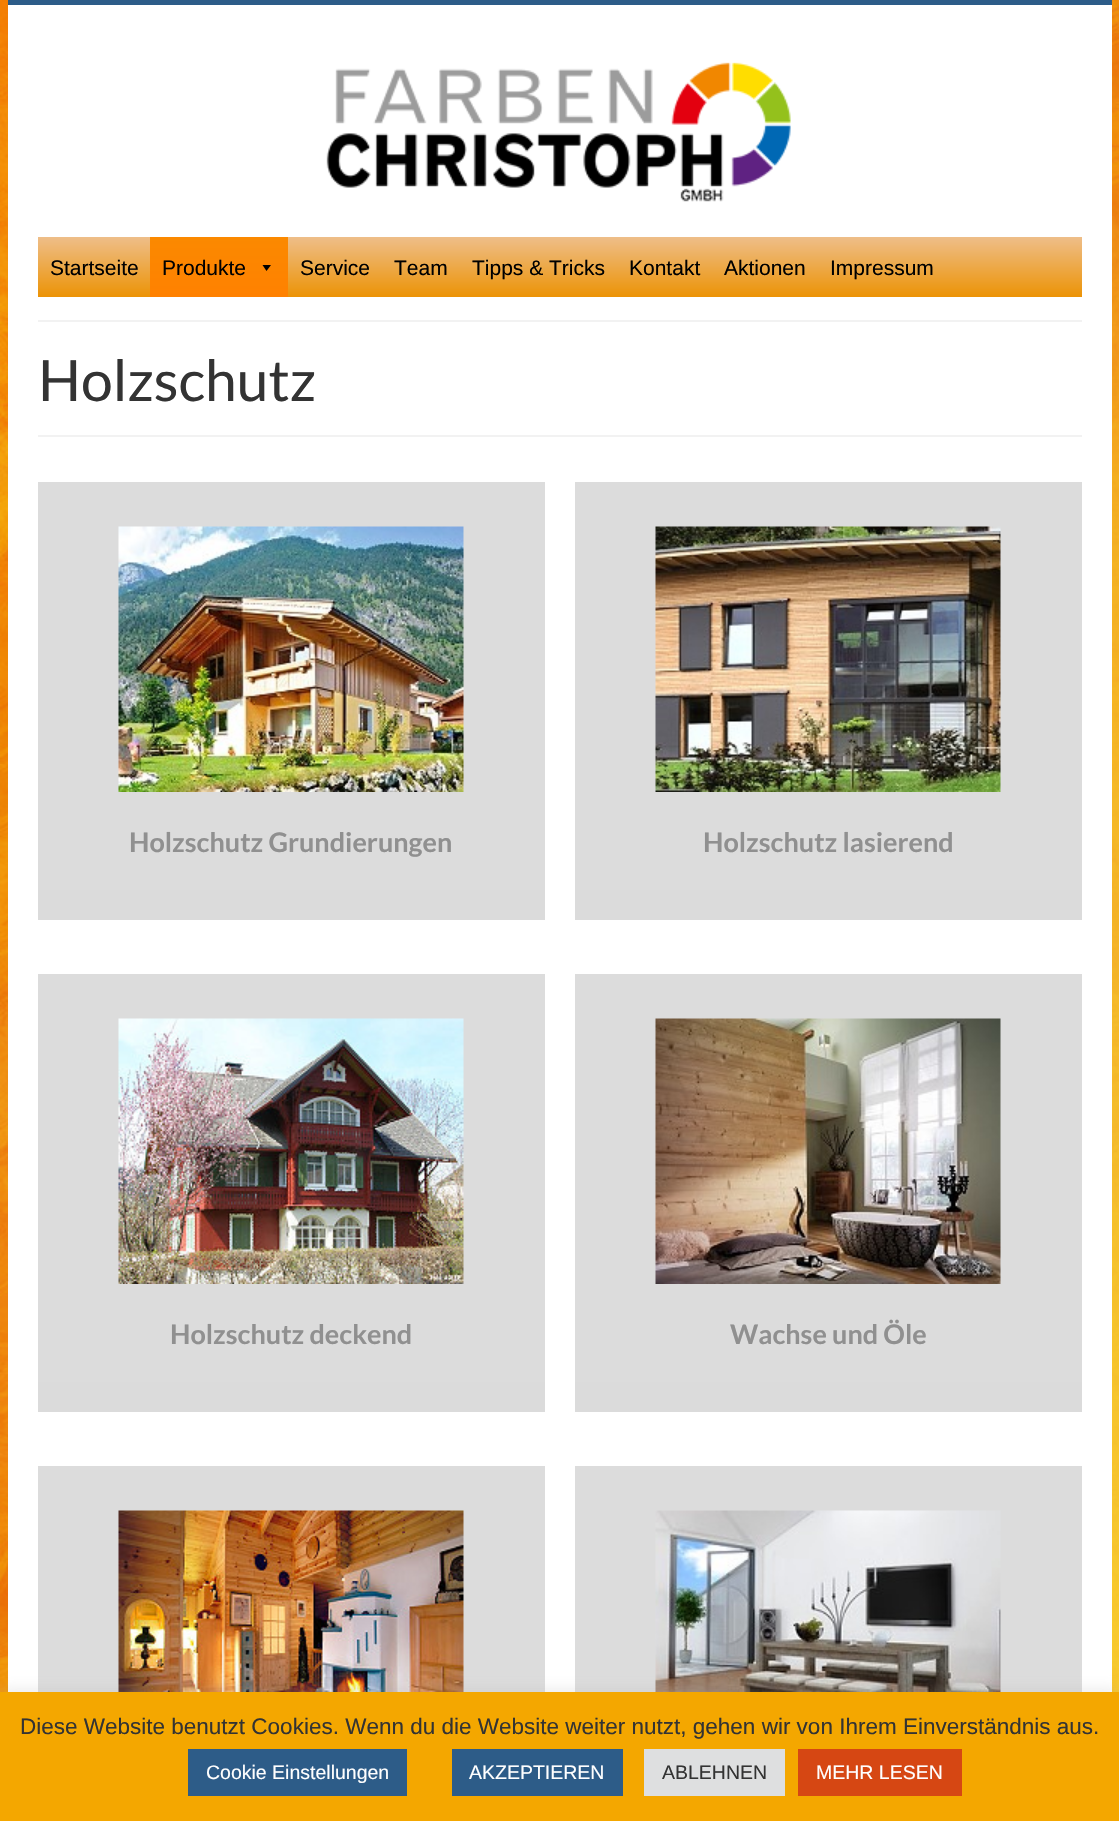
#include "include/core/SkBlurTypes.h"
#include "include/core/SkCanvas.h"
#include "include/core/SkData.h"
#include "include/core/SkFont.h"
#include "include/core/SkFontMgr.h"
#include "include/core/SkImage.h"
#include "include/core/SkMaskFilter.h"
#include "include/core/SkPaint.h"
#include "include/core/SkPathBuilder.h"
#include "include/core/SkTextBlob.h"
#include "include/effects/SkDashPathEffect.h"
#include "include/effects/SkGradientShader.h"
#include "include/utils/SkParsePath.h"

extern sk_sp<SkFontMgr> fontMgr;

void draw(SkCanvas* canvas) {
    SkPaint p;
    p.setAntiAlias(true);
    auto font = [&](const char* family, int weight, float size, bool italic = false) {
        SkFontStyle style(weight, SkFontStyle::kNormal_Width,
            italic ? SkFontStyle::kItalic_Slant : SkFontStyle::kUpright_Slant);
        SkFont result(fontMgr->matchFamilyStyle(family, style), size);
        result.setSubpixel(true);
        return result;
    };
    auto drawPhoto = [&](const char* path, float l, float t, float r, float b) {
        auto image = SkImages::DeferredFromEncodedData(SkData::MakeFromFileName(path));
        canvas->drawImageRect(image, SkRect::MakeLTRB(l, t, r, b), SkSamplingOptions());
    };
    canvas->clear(0xFFFFFFFF);
    drawPhoto("media/1.png", 0, 0, 1119, 1692);
    p.setColor(0xFFFFFFFF);
    canvas->drawRect(SkRect::MakeLTRB(8, 5, 1112, 1692), p);
    p.setColor(0xFF2D5C88);
    canvas->drawRect(SkRect::MakeLTRB(8, 0, 1112, 5), p);
    drawPhoto("media/2.png", 326, 62, 791, 202);
    {
        const SkColor colors[] = {0xFFEEBE89, 0xFFEC9306};
        const float stops[] = {0, 1};
        const SkPoint ends[] = {{560, 237}, {560, 297}};
        p.setShader(SkGradientShader::MakeLinear(ends, colors, stops, 2, SkTileMode::kClamp));
        p.setAlpha(255);
    }
    canvas->drawRect(SkRect::MakeLTRB(38, 237, 1082, 297), p);
    auto font1 = font("Liberation Sans", 400, 21);
    p.setShader(nullptr);
    p.setColor(0xFF000000);
    canvas->drawString("Startseite", 50, 275, font1, p);
    {
        const SkColor colors[] = {0xFFFB8900, 0xFFFF8100};
        const float stops[] = {0, 1};
        const SkPoint ends[] = {{219, 237}, {219, 297}};
        p.setShader(SkGradientShader::MakeLinear(ends, colors, stops, 2, SkTileMode::kClamp));
        p.setAlpha(255);
    }
    canvas->drawRect(SkRect::MakeLTRB(150, 237, 288, 297), p);
    p.setShader(nullptr);
    p.setColor(0xFF000000);
    canvas->drawString("Produkte", 162, 275, font1, p);
    canvas->drawPath(SkPathBuilder().moveTo(271, 265).lineTo(266.5f, 271).lineTo(262.5f, 265).close().detach(), p);
    {
        const struct { const char* s; float x, y; } items[] = {
            {"Service", 300, 275},
            {"Team", 394, 275},
            {"Tipps & Tricks", 472, 275},
            {"Kontakt", 629, 275},
            {"Aktionen", 724, 275},
            {"Impressum", 830, 275},
        };
        for (auto [s, x, y] : items) {
            canvas->drawString(s, x, y, font1, p);
        }
    }
    p.setColor(0xFFF2F2F2);
    canvas->drawRect(SkRect::MakeLTRB(38, 320, 1082, 322), p);
    canvas->drawRect(SkRect::MakeLTRB(38, 435, 1082, 437), p);
    auto font2 = font("Lato", 400, 57);
    p.setColor(0xFF333333);
    canvas->drawString("Holzschutz", 38, 401, font2, p);
    p.setColor(0xFFDCDCDC);
    canvas->drawRect(SkRect::MakeLTRB(38, 482, 545, 890), p);
    drawPhoto("media/3.png", 118, 526, 464, 792);
    auto font3 = font("Lato", 700, 27);
    p.setColor(0xFF909090);
    canvas->drawString("Holzschutz Grundierungen", 129, 852, font3, p);
    p.setColor(0xFFDBDBDB);
    canvas->drawRect(SkRect::MakeLTRB(38, 890, 545, 920), p);
    p.setColor(0xFFDCDCDC);
    canvas->drawRect(SkRect::MakeLTRB(575, 482, 1082, 890), p);
    drawPhoto("media/4.png", 655, 526, 1001, 792);
    p.setColor(0xFF909090);
    canvas->drawString("Holzschutz lasierend", 703, 852, font3, p);
    p.setColor(0xFFDBDBDB);
    canvas->drawRect(SkRect::MakeLTRB(575, 890, 1082, 920), p);
    p.setColor(0xFFDCDCDC);
    canvas->drawRect(SkRect::MakeLTRB(38, 974, 545, 1382), p);
    drawPhoto("media/5.png", 118, 1018, 464, 1284);
    p.setColor(0xFF909090);
    canvas->drawString("Holzschutz deckend", 170, 1344, font3, p);
    p.setColor(0xFFDBDBDB);
    canvas->drawRect(SkRect::MakeLTRB(38, 1382, 545, 1412), p);
    p.setColor(0xFFDCDCDC);
    canvas->drawRect(SkRect::MakeLTRB(575, 974, 1082, 1382), p);
    drawPhoto("media/6.png", 655, 1018, 1001, 1284);
    p.setColor(0xFF909090);
    canvas->drawString("Wachse und Öle", 730, 1344, font3, p);
    p.setColor(0xFFDBDBDB);
    canvas->drawRect(SkRect::MakeLTRB(575, 1382, 1082, 1412), p);
    p.setColor(0xFFDCDCDC);
    canvas->drawRect(SkRect::MakeLTRB(38, 1466, 545, 1692), p);
    drawPhoto("media/7.png", 118, 1510, 464, 1692);
    canvas->drawRect(SkRect::MakeLTRB(575, 1466, 1082, 1692), p);
    drawPhoto("media/8.png", 655, 1510, 1001, 1692);
    p.setColor(0x4DACABAB);
    p.setMaskFilter(SkMaskFilter::MakeBlur(kNormal_SkBlurStyle, 7.5f));
    canvas->drawRect(SkRect::MakeLTRB(0, 1691, 1119, 1820), p);
    p.setMaskFilter(nullptr);
    p.setColor(0xFFF4A700);
    canvas->drawRect(SkRect::MakeLTRB(0, 1692, 1119, 1821), p);
    auto font4 = font("Liberation Sans", 400, 22.5f);
    p.setColor(0xFF333333);
    canvas->drawString("Diese Website benutzt Cookies. Wenn du die Website weiter nutzt, gehen wir von Ihrem Einverständnis aus.", 20, 1734, font4, p);
    p.setColor(0xFF2D5C88);
    canvas->drawRect(SkRect::MakeLTRB(188, 1749, 407, 1796), p);
    auto font5 = font("Liberation Sans", 400, 19.5f);
    p.setColor(0xFFFFFFFF);
    canvas->drawString("Cookie Einstellungen", 206, 1779, font5, p);
    p.setColor(0xFF2D5C88);
    canvas->drawRect(SkRect::MakeLTRB(452, 1749, 623, 1796), p);
    p.setColor(0xFFFFFFFF);
    canvas->drawString("AKZEPTIEREN", 469, 1779, font5, p);
    p.setColor(0xFFDEDFE0);
    canvas->drawRect(SkRect::MakeLTRB(644, 1749, 785, 1796), p);
    p.setColor(0xFF333333);
    canvas->drawString("ABLEHNEN", 662, 1779, font5, p);
    p.setColor(0xFFD64713);
    canvas->drawRect(SkRect::MakeLTRB(798, 1749, 962, 1796), p);
    p.setColor(0xFFFFFFFF);
    canvas->drawString("MEHR LESEN", 816, 1779, font5, p);
}
